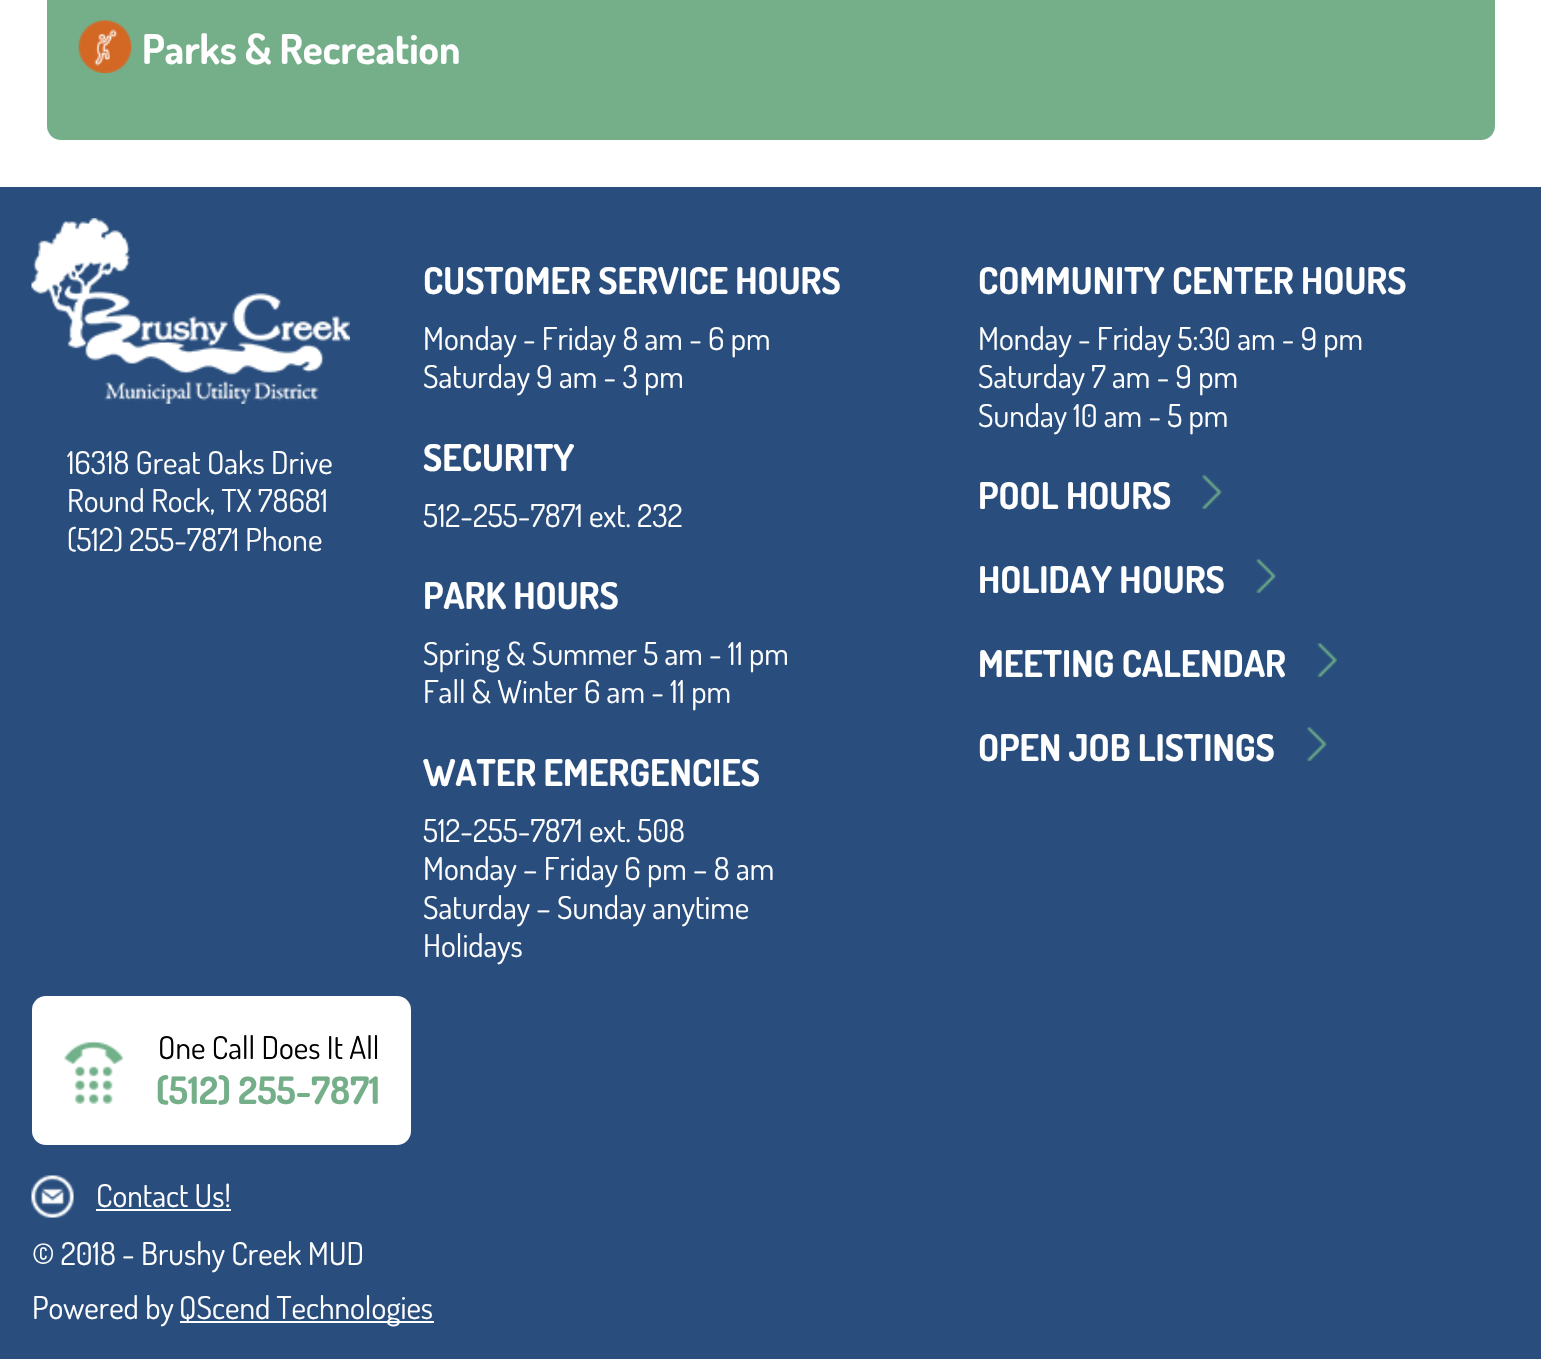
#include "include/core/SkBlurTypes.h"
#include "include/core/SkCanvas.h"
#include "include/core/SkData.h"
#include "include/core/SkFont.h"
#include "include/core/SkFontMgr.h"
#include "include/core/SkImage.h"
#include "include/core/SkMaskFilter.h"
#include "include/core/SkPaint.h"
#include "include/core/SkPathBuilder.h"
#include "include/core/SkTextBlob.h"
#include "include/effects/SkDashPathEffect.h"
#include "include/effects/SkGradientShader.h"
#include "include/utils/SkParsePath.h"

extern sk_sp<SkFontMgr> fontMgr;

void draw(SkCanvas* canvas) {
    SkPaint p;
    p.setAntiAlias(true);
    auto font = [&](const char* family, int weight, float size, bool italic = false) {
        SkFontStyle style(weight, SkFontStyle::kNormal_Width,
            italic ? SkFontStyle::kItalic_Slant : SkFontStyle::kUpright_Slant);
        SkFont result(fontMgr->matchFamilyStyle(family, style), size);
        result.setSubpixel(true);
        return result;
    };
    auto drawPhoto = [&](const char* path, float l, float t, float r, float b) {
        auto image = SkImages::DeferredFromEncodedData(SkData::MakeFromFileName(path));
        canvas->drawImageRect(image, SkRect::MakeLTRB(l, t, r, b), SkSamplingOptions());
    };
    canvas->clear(0xFFFFFFFF);
    p.setColor(0xFF75AF8A);
    canvas->drawRoundRect(SkRect::MakeLTRB(47, -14, 1495, 140), 14, 14, p);
    drawPhoto("media/1.png", 78, 20, 132, 73);
    auto font1 = font("Dosis", 700, 41);
    p.setColor(0xFFFFFFFF);
    canvas->drawString("Parks & Recreation", 142, 64, font1, p);
    p.setColor(0xFF294E7E);
    canvas->drawRect(SkRect::MakeLTRB(0, 187, 1541, 1359), p);
    drawPhoto("media/2.png", 31, 218, 350, 404);
    auto font2 = font("Dosis", 400, 31.5f);
    p.setColor(0xFFFFFFFF);
    {
        const struct { const char* s; float x, y; } items[] = {
            {"16318 Great Oaks Drive", 67, 474},
            {"Round Rock, TX 78681", 67, 512},
            {"(512) 255-7871 Phone", 67, 551},
        };
        for (auto [s, x, y] : items) {
            canvas->drawString(s, x, y, font2, p);
        }
    }
    auto font3 = font("Dosis", 700, 36.8f);
    canvas->drawString("CUSTOMER SERVICE HOURS", 423, 294, font3, p);
    canvas->drawString("Monday - Friday 8 am - 6 pm", 423, 350, font2, p);
    canvas->drawString("Saturday 9 am - 3 pm", 423, 388, font2, p);
    canvas->drawString("SECURITY", 423, 471, font3, p);
    canvas->drawString("512-255-7871 ext. 232", 423, 527, font2, p);
    canvas->drawString("PARK HOURS", 423, 609, font3, p);
    canvas->drawString("Spring & Summer 5 am - 11 pm", 423, 665, font2, p);
    canvas->drawString("Fall & Winter 6 am - 11 pm", 423, 703, font2, p);
    canvas->drawString("WATER EMERGENCIES", 423, 786, font3, p);
    {
        const struct { const char* s; float x, y; } items[] = {
            {"512-255-7871 ext. 508", 423, 842},
            {"Monday – Friday 6 pm – 8 am", 423, 880},
            {"Saturday – Sunday anytime", 423, 919},
            {"Holidays", 423, 957},
        };
        for (auto [s, x, y] : items) {
            canvas->drawString(s, x, y, font2, p);
        }
    }
    canvas->drawString("COMMUNITY CENTER HOURS", 978, 294, font3, p);
    {
        const struct { const char* s; float x, y; } items[] = {
            {"Monday - Friday 5:30 am - 9 pm", 978, 350},
            {"Saturday 7 am - 9 pm", 978, 388},
            {"Sunday 10 am - 5 pm", 978, 427},
        };
        for (auto [s, x, y] : items) {
            canvas->drawString(s, x, y, font2, p);
        }
    }
    canvas->drawString("POOL HOURS", 978, 509, font3, p);
    drawPhoto("media/3.png", 1202, 475, 1222, 509);
    canvas->drawString("HOLIDAY HOURS", 978, 593, font3, p);
    drawPhoto("media/4.png", 1256, 559, 1276, 593);
    canvas->drawString("MEETING CALENDAR", 978, 677, font3, p);
    drawPhoto("media/5.png", 1317, 643, 1337, 677);
    canvas->drawString("OPEN JOB LISTINGS", 978, 761, font3, p);
    drawPhoto("media/3.png", 1307, 727, 1327, 761);
    canvas->drawRoundRect(SkRect::MakeLTRB(32, 996, 411, 1145), 14, 14, p);
    drawPhoto("media/6.png", 64, 1040, 124, 1104);
    p.setColor(0xFF000000);
    canvas->drawString("One Call Does It All", 158, 1059, font2, p);
    auto font4 = font("Dosis", 700, 37.75f);
    p.setColor(0xFF75AF8A);
    canvas->drawString("(512) 255-7871", 156, 1104, font4, p);
    drawPhoto("media/7.png", 31, 1175, 74, 1218);
    p.setColor(0xFFFFFFFF);
    canvas->drawString("Contact Us!", 96, 1207, font2, p);
    canvas->drawRect(SkRect::MakeLTRB(96, 1209, 231, 1211), p);
    canvas->drawString("© 2018 - Brushy Creek MUD", 32, 1265, font2, p);
    canvas->drawString("Powered by", 32, 1319, font2, p);
    canvas->drawRect(SkRect::MakeLTRB(180, 1321, 434, 1323), p);
    canvas->drawString("QScend Technologies", 179, 1319, font2, p);
}
